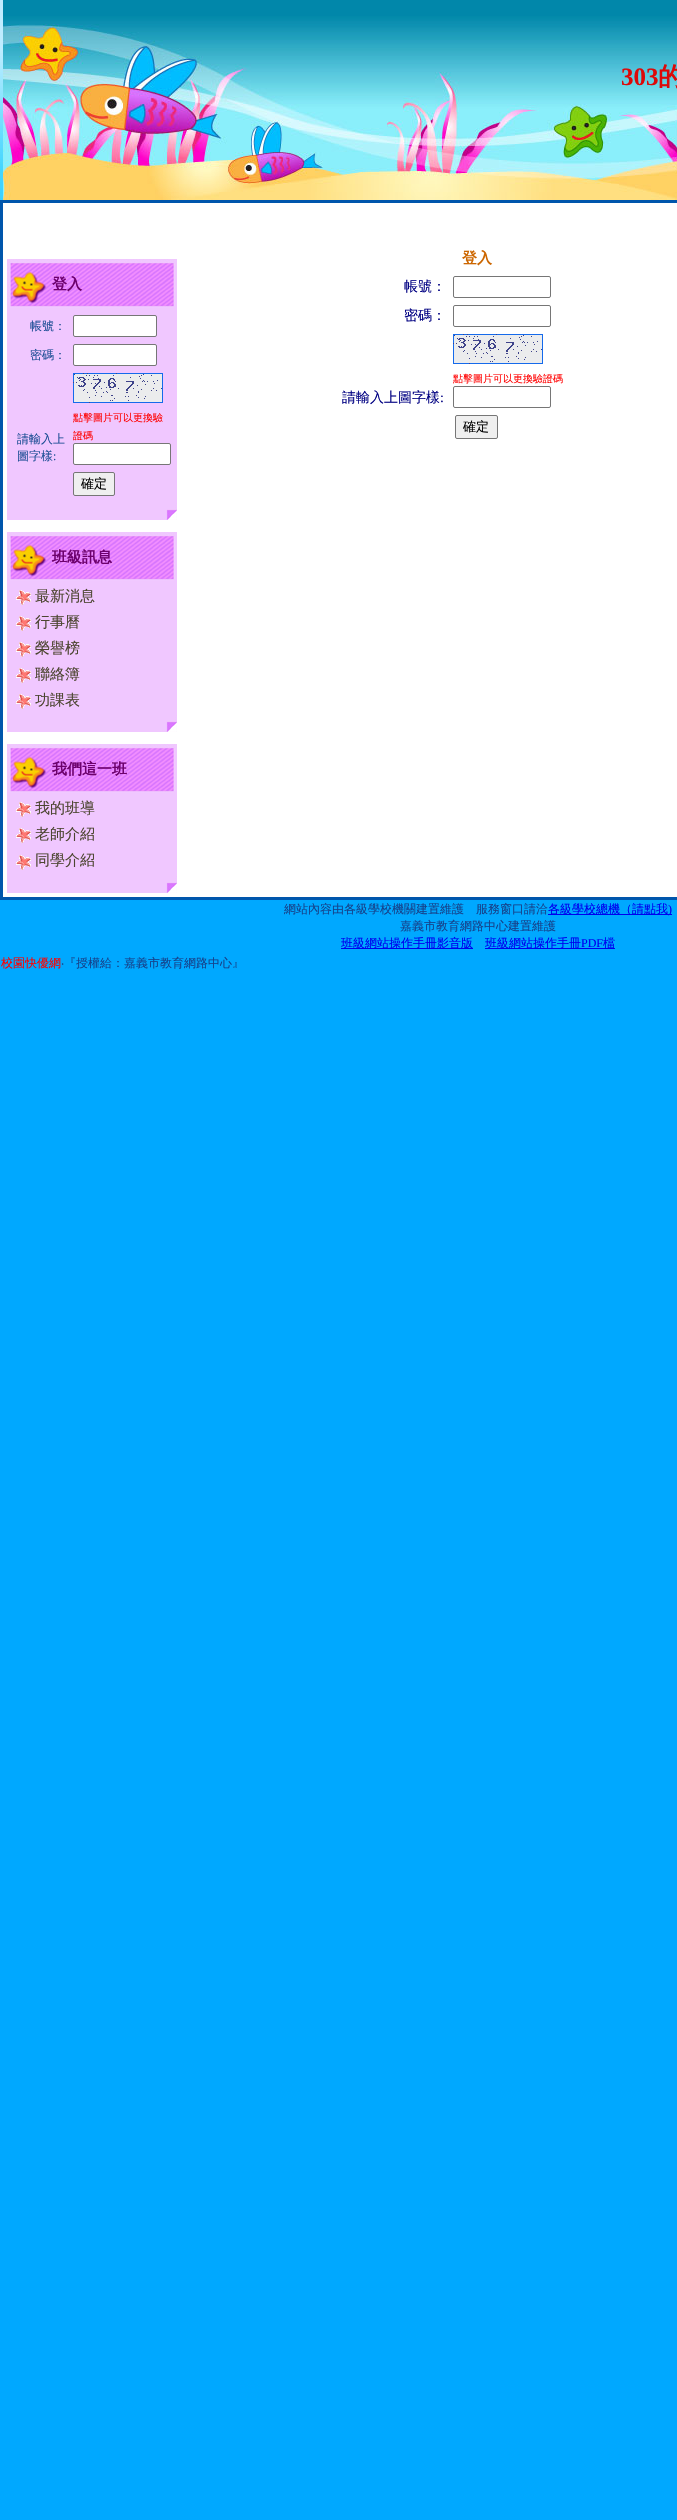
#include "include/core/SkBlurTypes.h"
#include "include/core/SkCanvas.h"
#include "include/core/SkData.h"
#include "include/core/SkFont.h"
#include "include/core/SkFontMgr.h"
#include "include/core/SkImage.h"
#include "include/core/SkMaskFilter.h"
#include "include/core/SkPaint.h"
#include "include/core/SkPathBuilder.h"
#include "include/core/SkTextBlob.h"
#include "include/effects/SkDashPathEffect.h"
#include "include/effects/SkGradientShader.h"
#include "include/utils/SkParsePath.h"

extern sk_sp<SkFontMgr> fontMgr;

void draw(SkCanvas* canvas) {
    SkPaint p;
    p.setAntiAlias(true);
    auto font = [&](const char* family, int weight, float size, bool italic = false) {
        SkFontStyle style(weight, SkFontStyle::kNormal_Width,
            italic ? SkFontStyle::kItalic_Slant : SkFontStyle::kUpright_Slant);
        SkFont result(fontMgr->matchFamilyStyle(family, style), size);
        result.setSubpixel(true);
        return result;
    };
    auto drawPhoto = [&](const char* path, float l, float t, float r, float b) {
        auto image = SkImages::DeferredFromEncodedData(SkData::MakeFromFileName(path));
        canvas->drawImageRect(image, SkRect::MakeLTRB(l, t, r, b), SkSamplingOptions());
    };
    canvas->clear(0xFF00A8FF);
    drawPhoto("media/1.png", 0, 0, 3, 200);
    drawPhoto("media/2.png", 3, 0, 677, 200);
    auto font1 = font("Liberation Serif", 700, 25);
    p.setColor(0xFFDC0909);
    canvas->drawString("303", 621, 85, font1, p);
    auto font2 = font("WenQuanYi Zen Hei", 700, 25);
    canvas->drawString("的", 658, 85, font2, p);
    p.setColor(0xFFFFFFFF);
    canvas->drawRect(SkRect::MakeLTRB(1.5f, 201.5f, 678.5f, 898.5f), p);
    p.setStyle(SkPaint::kStroke_Style);
    p.setStrokeWidth(3);
    p.setColor(0xFF0056AC);
    canvas->drawRect(SkRect::MakeLTRB(1.5f, 201.5f, 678.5f, 898.5f), p);
    drawPhoto("media/3.png", 7, 259, 177, 309);
    auto font3 = font("WenQuanYi Zen Hei", 700, 15);
    p.setStyle(SkPaint::kFill_Style);
    p.setColor(0xFF6D016D);
    canvas->drawString("登入", 52, 289, font3, p);
    p.setColor(0xFFF0C7FF);
    canvas->drawRect(SkRect::MakeLTRB(7, 309, 177, 502), p);
    auto font4 = font("WenQuanYi Zen Hei", 500, 12);
    p.setColor(0xFF1E4F96);
    canvas->drawString("帳號：", 30, 330, font4, p);
    p.setColor(0xFFFFFFFF);
    canvas->drawRoundRect(SkRect::MakeLTRB(73.5f, 315.5f, 156.5f, 336.5f), 1.5f, 1.5f, p);
    p.setStyle(SkPaint::kStroke_Style);
    p.setStrokeWidth(1);
    p.setColor(0xFF767676);
    canvas->drawRoundRect(SkRect::MakeLTRB(73.5f, 315.5f, 156.5f, 336.5f), 1.5f, 1.5f, p);
    p.setStyle(SkPaint::kFill_Style);
    p.setColor(0xFF1E4F96);
    canvas->drawString("密碼：", 30, 359, font4, p);
    p.setColor(0xFFFFFFFF);
    canvas->drawRoundRect(SkRect::MakeLTRB(73.5f, 344.5f, 156.5f, 365.5f), 1.5f, 1.5f, p);
    p.setStyle(SkPaint::kStroke_Style);
    p.setColor(0xFF767676);
    canvas->drawRoundRect(SkRect::MakeLTRB(73.5f, 344.5f, 156.5f, 365.5f), 1.5f, 1.5f, p);
    drawPhoto("media/4.png", 73, 373, 163, 403);
    auto font5 = font("WenQuanYi Zen Hei", 500, 10);
    p.setStyle(SkPaint::kFill_Style);
    p.setColor(0xFFFF0000);
    canvas->drawString("點擊圖片可以更換驗", 73, 421, font5, p);
    canvas->drawString("證碼", 73, 439, font5, p);
    p.setColor(0xFFFFFFFF);
    canvas->drawRoundRect(SkRect::MakeLTRB(73.5f, 443.5f, 170.5f, 464.5f), 1.5f, 1.5f, p);
    p.setStyle(SkPaint::kStroke_Style);
    p.setColor(0xFF767676);
    canvas->drawRoundRect(SkRect::MakeLTRB(73.5f, 443.5f, 170.5f, 464.5f), 1.5f, 1.5f, p);
    p.setStyle(SkPaint::kFill_Style);
    p.setColor(0xFF1E4F96);
    canvas->drawString("請輸入上", 17, 443, font4, p);
    canvas->drawString("圖字樣", 17, 460, font4, p);
    auto font6 = font("Liberation Serif", 400, 12);
    canvas->drawString(":", 53, 460, font6, p);
    p.setColor(0xFFEFEFEF);
    canvas->drawRoundRect(SkRect::MakeLTRB(73.5f, 472.5f, 114.5f, 495.5f), 1.5f, 1.5f, p);
    p.setStyle(SkPaint::kStroke_Style);
    p.setColor(0xFF767676);
    canvas->drawRoundRect(SkRect::MakeLTRB(73.5f, 472.5f, 114.5f, 495.5f), 1.5f, 1.5f, p);
    auto font7 = font("WenQuanYi Zen Hei", 500, 13);
    p.setStyle(SkPaint::kFill_Style);
    p.setColor(0xFF000000);
    canvas->drawString("確定", 81, 488, font7, p);
    drawPhoto("media/5.png", 7, 502, 177, 520);
    drawPhoto("media/3.png", 7, 532, 177, 582);
    p.setColor(0xFF6D016D);
    canvas->drawString("班級訊息", 52, 562, font3, p);
    p.setColor(0xFFF0C7FF);
    canvas->drawRect(SkRect::MakeLTRB(7, 582, 177, 714), p);
    drawPhoto("media/6.png", 16, 590, 31, 605);
    auto font8 = font("WenQuanYi Zen Hei", 500, 15);
    p.setColor(0xFF4C4530);
    canvas->drawString("最新消息", 35, 601, font8, p);
    drawPhoto("media/6.png", 16, 616, 31, 631);
    canvas->drawString("行事曆", 35, 627, font8, p);
    drawPhoto("media/6.png", 16, 642, 31, 657);
    canvas->drawString("榮譽榜", 35, 653, font8, p);
    drawPhoto("media/6.png", 16, 668, 31, 683);
    canvas->drawString("聯絡簿", 35, 679, font8, p);
    drawPhoto("media/6.png", 16, 694, 31, 709);
    canvas->drawString("功課表", 35, 705, font8, p);
    drawPhoto("media/5.png", 7, 714, 177, 732);
    drawPhoto("media/3.png", 7, 744, 177, 794);
    p.setColor(0xFF6D016D);
    canvas->drawString("我們這一班", 52, 774, font3, p);
    p.setColor(0xFFF0C7FF);
    canvas->drawRect(SkRect::MakeLTRB(7, 794, 177, 875), p);
    drawPhoto("media/6.png", 16, 802, 31, 817);
    p.setColor(0xFF4C4530);
    canvas->drawString("我的班導", 35, 813, font8, p);
    drawPhoto("media/6.png", 16, 828, 31, 843);
    canvas->drawString("老師介紹", 35, 839, font8, p);
    drawPhoto("media/6.png", 16, 855, 31, 870);
    canvas->drawString("同學介紹", 35, 865, font8, p);
    drawPhoto("media/5.png", 7, 875, 177, 893);
    p.setColor(0xFFCC6600);
    canvas->drawString("登入", 462, 263, font3, p);
    auto font9 = font("WenQuanYi Zen Hei", 500, 14);
    p.setColor(0xFF000082);
    canvas->drawString("帳號：", 404, 291, font9, p);
    p.setStyle(SkPaint::kStroke_Style);
    p.setColor(0xFF767676);
    canvas->drawRoundRect(SkRect::MakeLTRB(453.5f, 276.5f, 550.5f, 297.5f), 1.5f, 1.5f, p);
    p.setStyle(SkPaint::kFill_Style);
    p.setColor(0xFF000082);
    canvas->drawString("密碼：", 404, 320, font9, p);
    p.setStyle(SkPaint::kStroke_Style);
    p.setColor(0xFF767676);
    canvas->drawRoundRect(SkRect::MakeLTRB(453.5f, 305.5f, 550.5f, 326.5f), 1.5f, 1.5f, p);
    drawPhoto("media/4.png", 453, 334, 543, 364);
    p.setStyle(SkPaint::kFill_Style);
    p.setColor(0xFFFF0000);
    canvas->drawString("點擊圖片可以更換驗證碼", 453, 382, font5, p);
    p.setStyle(SkPaint::kStroke_Style);
    p.setColor(0xFF767676);
    canvas->drawRoundRect(SkRect::MakeLTRB(453.5f, 386.5f, 550.5f, 407.5f), 1.5f, 1.5f, p);
    p.setStyle(SkPaint::kFill_Style);
    p.setColor(0xFF000082);
    canvas->drawString("請輸入上圖字樣", 342, 402, font9, p);
    auto font10 = font("Liberation Serif", 400, 14);
    canvas->drawString(":", 440, 402, font10, p);
    p.setColor(0xFFEFEFEF);
    canvas->drawRoundRect(SkRect::MakeLTRB(455.5f, 415.5f, 497.5f, 438.5f), 1.5f, 1.5f, p);
    p.setStyle(SkPaint::kStroke_Style);
    p.setColor(0xFF767676);
    canvas->drawRoundRect(SkRect::MakeLTRB(455.5f, 415.5f, 497.5f, 438.5f), 1.5f, 1.5f, p);
    p.setStyle(SkPaint::kFill_Style);
    p.setColor(0xFF000000);
    canvas->drawString("確定", 463, 431, font7, p);
    p.setColor(0xFF15428B);
    canvas->drawString("網站內容由各級學校機關建置維護　服務窗口請洽", 284, 913, font4, p);
    p.setColor(0xFF0000EE);
    canvas->drawRect(SkRect::MakeLTRB(548, 914, 672, 915), p);
    canvas->drawString("各級學校總機（請點我", 548, 913, font4, p);
    canvas->drawString(")", 668, 913, font6, p);
    p.setColor(0xFF15428B);
    canvas->drawString("嘉義市教育網路中心建置維護", 400, 930, font4, p);
    p.setColor(0xFF0000EE);
    canvas->drawRect(SkRect::MakeLTRB(341, 948, 473, 949), p);
    canvas->drawString("班級網站操作手冊影音版", 341, 947, font4, p);
    canvas->drawRect(SkRect::MakeLTRB(485, 948, 615, 949), p);
    canvas->drawString("班級網站操作手冊", 485, 947, font4, p);
    canvas->drawString("PDF", 581, 947, font6, p);
    canvas->drawString("檔", 603, 947, font4, p);
    p.setColor(0xFFFF0000);
    canvas->drawString("校園快優網", 1, 967, font4, p);
    auto font11 = font("Noto Sans", 400, 12);
    p.setColor(0xFF15428B);
    canvas->drawString("‧", 61, 967, font11, p);
    canvas->drawString("『授權給：嘉義市教育網路中心』", 64, 967, font4, p);
}
